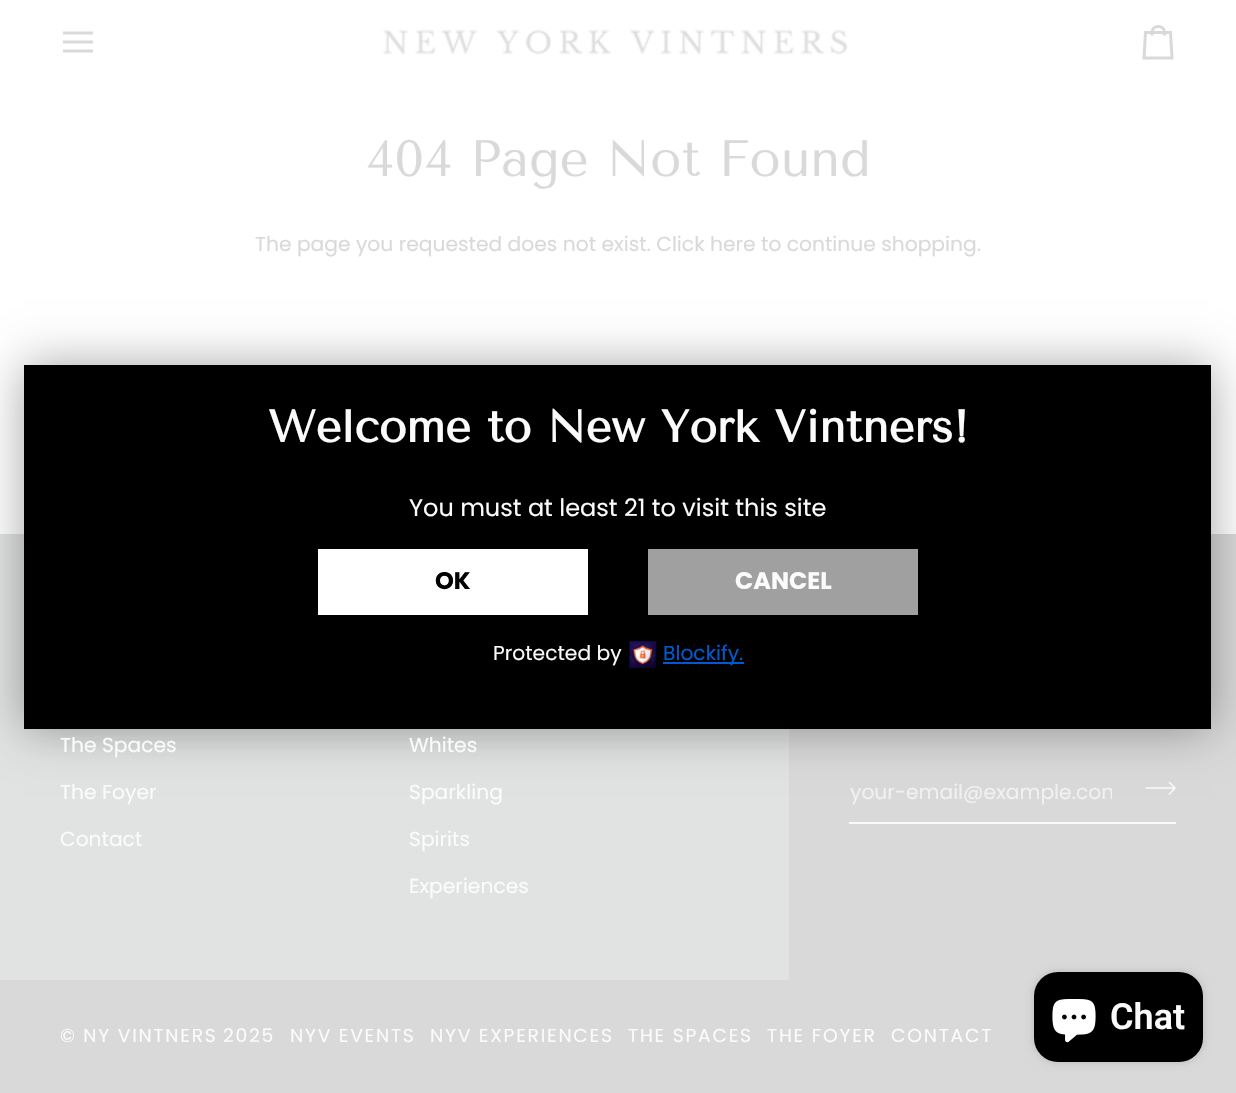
#include "include/core/SkBlurTypes.h"
#include "include/core/SkCanvas.h"
#include "include/core/SkData.h"
#include "include/core/SkFont.h"
#include "include/core/SkFontMgr.h"
#include "include/core/SkImage.h"
#include "include/core/SkMaskFilter.h"
#include "include/core/SkPaint.h"
#include "include/core/SkPathBuilder.h"
#include "include/core/SkTextBlob.h"
#include "include/effects/SkDashPathEffect.h"
#include "include/effects/SkGradientShader.h"
#include "include/utils/SkParsePath.h"

extern sk_sp<SkFontMgr> fontMgr;

void draw(SkCanvas* canvas) {
    SkPaint p;
    p.setAntiAlias(true);
    auto font = [&](const char* family, int weight, float size, bool italic = false) {
        SkFontStyle style(weight, SkFontStyle::kNormal_Width,
            italic ? SkFontStyle::kItalic_Slant : SkFontStyle::kUpright_Slant);
        SkFont result(fontMgr->matchFamilyStyle(family, style), size);
        result.setSubpixel(true);
        return result;
    };
    auto drawTracked = [&](const char* s, float x, float y, const SkFont& font, const SkPaint& ink, float letter, float word) {
        std::vector<SkGlyphID> glyphs(font.countText(s, strlen(s), SkTextEncoding::kUTF8));
        std::vector<float> xs(glyphs.size());
        font.textToGlyphs(s, strlen(s), SkTextEncoding::kUTF8, glyphs);
        font.getXPos(glyphs, xs, x);
        float extra = 0;
        for (size_t i = 0; i < glyphs.size(); i++) {
            xs[i] += extra;
            extra += letter + word * (glyphs[i] == font.unicharToGlyph(' '));
        }
        canvas->drawTextBlob(SkTextBlob::MakeFromPosHGlyphs(glyphs, xs, y, font), 0, 0, ink);
    };
    auto drawPhoto = [&](const char* path, float l, float t, float r, float b) {
        auto image = SkImages::DeferredFromEncodedData(SkData::MakeFromFileName(path));
        canvas->drawImageRect(image, SkRect::MakeLTRB(l, t, r, b), SkSamplingOptions());
    };
    canvas->clear(0xFFFFFFFF);
    p.setStyle(SkPaint::kStroke_Style);
    p.setStrokeWidth(3);
    p.setStrokeCap(SkPaint::kSquare_Cap);
    p.setColor(0xFFD9D9D9);
    canvas->drawPath(SkPathBuilder().moveTo(91.5f, 33).lineTo(64.5f, 33).moveTo(91.5f, 42).lineTo(64.5f, 42).moveTo(91.5f, 51).lineTo(64.5f, 51).detach(), p);
    drawPhoto("media/1.png", 382, 29, 851, 59);
    p.setStrokeCap(SkPaint::kButt_Cap);
    canvas->drawPath(SkPathBuilder().moveTo(1164.5f, 35.5f).lineTo(1164.5f, 32.5f).lineTo(1170.5f, 32.5f).lineTo(1172, 58).lineTo(1144, 58).lineTo(1145.5f, 32.5f).lineTo(1152, 32.5f).cubicTo(1152, 24.5f, 1164.5f, 24.5f, 1164.5f, 32.5f).lineTo(1152, 32.5f).lineTo(1152, 35.5f).detach(), p);
    auto font1 = font("Tenor Sans", 400, 51);
    p.setStyle(SkPaint::kFill_Style);
    canvas->drawString("404 Page Not Found", 366, 176, font1, p);
    auto font2 = font("Poppins", 400, 20.25f);
    canvas->drawString("The page you requested does not exist. Click here to continue shopping.", 255, 251, font2, p);
    p.setColor(0xFFE0E3E2);
    canvas->drawRect(SkRect::MakeLTRB(0, 534, 789, 980), p);
    p.setColor(0xFFD9D9D9);
    canvas->drawRect(SkRect::MakeLTRB(789, 534, 1236, 980), p);
    p.setStyle(SkPaint::kStroke_Style);
    p.setStrokeWidth(1.6f);
    p.setColor(0xFFFBFBFB);
    canvas->drawPath(SkPathBuilder().moveTo(1169, 782).lineTo(1175, 788).lineTo(1169, 794.5f).moveTo(1145.5f, 788).lineTo(1175, 788).detach(), p);
    p.setStyle(SkPaint::kFill_Style);
    p.setColor(0x59000000);
    p.setMaskFilter(SkMaskFilter::MakeBlur(kNormal_SkBlurStyle, 22.5f));
    canvas->drawRect(SkRect::MakeLTRB(24, 365, 1211, 729), p);
    p.setMaskFilter(nullptr);
    p.setColor(0xFF000000);
    canvas->drawRect(SkRect::MakeLTRB(24, 365, 1211, 729), p);
    auto font3 = font("Tenor Sans", 700, 45);
    p.setColor(0xFFFBFBFB);
    canvas->drawString("Welcome to New York Vintners!", 268, 442, font3, p);
    auto font4 = font("Poppins", 400, 24);
    canvas->drawString("You must at least 21 to visit this site", 409, 516, font4, p);
    p.setColor(0xFFFFFFFF);
    canvas->drawRect(SkRect::MakeLTRB(318, 549, 588, 615), p);
    auto font5 = font("Poppins", 700, 24);
    p.setColor(0xFF000000);
    canvas->drawString("OK", 435, 589, font5, p);
    p.setColor(0xFFA0A0A0);
    canvas->drawRect(SkRect::MakeLTRB(648, 549, 918, 615), p);
    p.setColor(0xFFFBFBFB);
    canvas->drawString("CANCEL", 735, 589, font5, p);
    canvas->drawString("Protected by", 493, 660, font2, p);
    drawPhoto("media/2.png", 629, 640, 657, 669);
    p.setColor(0xFF005BD3);
    canvas->drawRect(SkRect::MakeLTRB(663, 662, 744, 664), p);
    canvas->drawString("Blockify.", 663, 660, font2, p);
    p.setColor(0xFFFBFBFB);
    {
        const struct { const char* s; float x, y; } items[] = {
            {"The Spaces", 60, 752},
            {"The Foyer", 60, 799},
            {"Contact", 60, 846},
            {"Whites", 409, 752},
            {"Sparkling", 409, 799},
            {"Spirits", 409, 846},
            {"Experiences", 409, 893},
        };
        for (auto [s, x, y] : items) {
            canvas->drawString(s, x, y, font2, p);
        }
    }
    canvas->drawRect(SkRect::MakeLTRB(849, 822, 1176, 824), p);
    canvas->save();
    canvas->clipRect(SkRect::MakeLTRB(849, 777, 1112, 807));
    p.setColor(0xFFF1F1F1);
    canvas->drawString("your-email@example.com", 850, 799, font2, p);
    canvas->restore();
    p.setColor(0xFFD9D9D9);
    canvas->drawRect(SkRect::MakeLTRB(0, 980, 1236, 1093), p);
    p.setColor(0x26000000);
    p.setMaskFilter(SkMaskFilter::MakeBlur(kNormal_SkBlurStyle, 4));
    canvas->drawRoundRect(SkRect::MakeLTRB(1034, 972, 1203, 1062), 24, 24, p);
    p.setMaskFilter(nullptr);
    p.setColor(0xFF000000);
    canvas->drawRoundRect(SkRect::MakeLTRB(1034, 972, 1203, 1062), 24, 24, p);
    drawPhoto("media/3.png", 1052, 999, 1096, 1043);
    auto font6 = font("Roboto", 600, 36);
    p.setColor(0xFFFBFBFB);
    canvas->drawString("Chat", 1110, 1029, font6, p);
    auto font7 = font("Poppins", 400, 18.75f);
    {
        const struct { const char* s; float x, y; } items[] = {
            {"© NY VINTNERS", 60, 1042},
            {"2025", 223, 1042},
            {"NYV EVENTS", 290, 1042},
            {"NYV EXPERIENCES", 430, 1042},
            {"THE SPACES", 628, 1042},
            {"THE FOYER", 767, 1042},
            {"CONTACT", 891, 1042},
        };
        for (auto [s, x, y] : items) {
            drawTracked(s, x, y, font7, p, 1.75f, 0);
        }
    }
}
